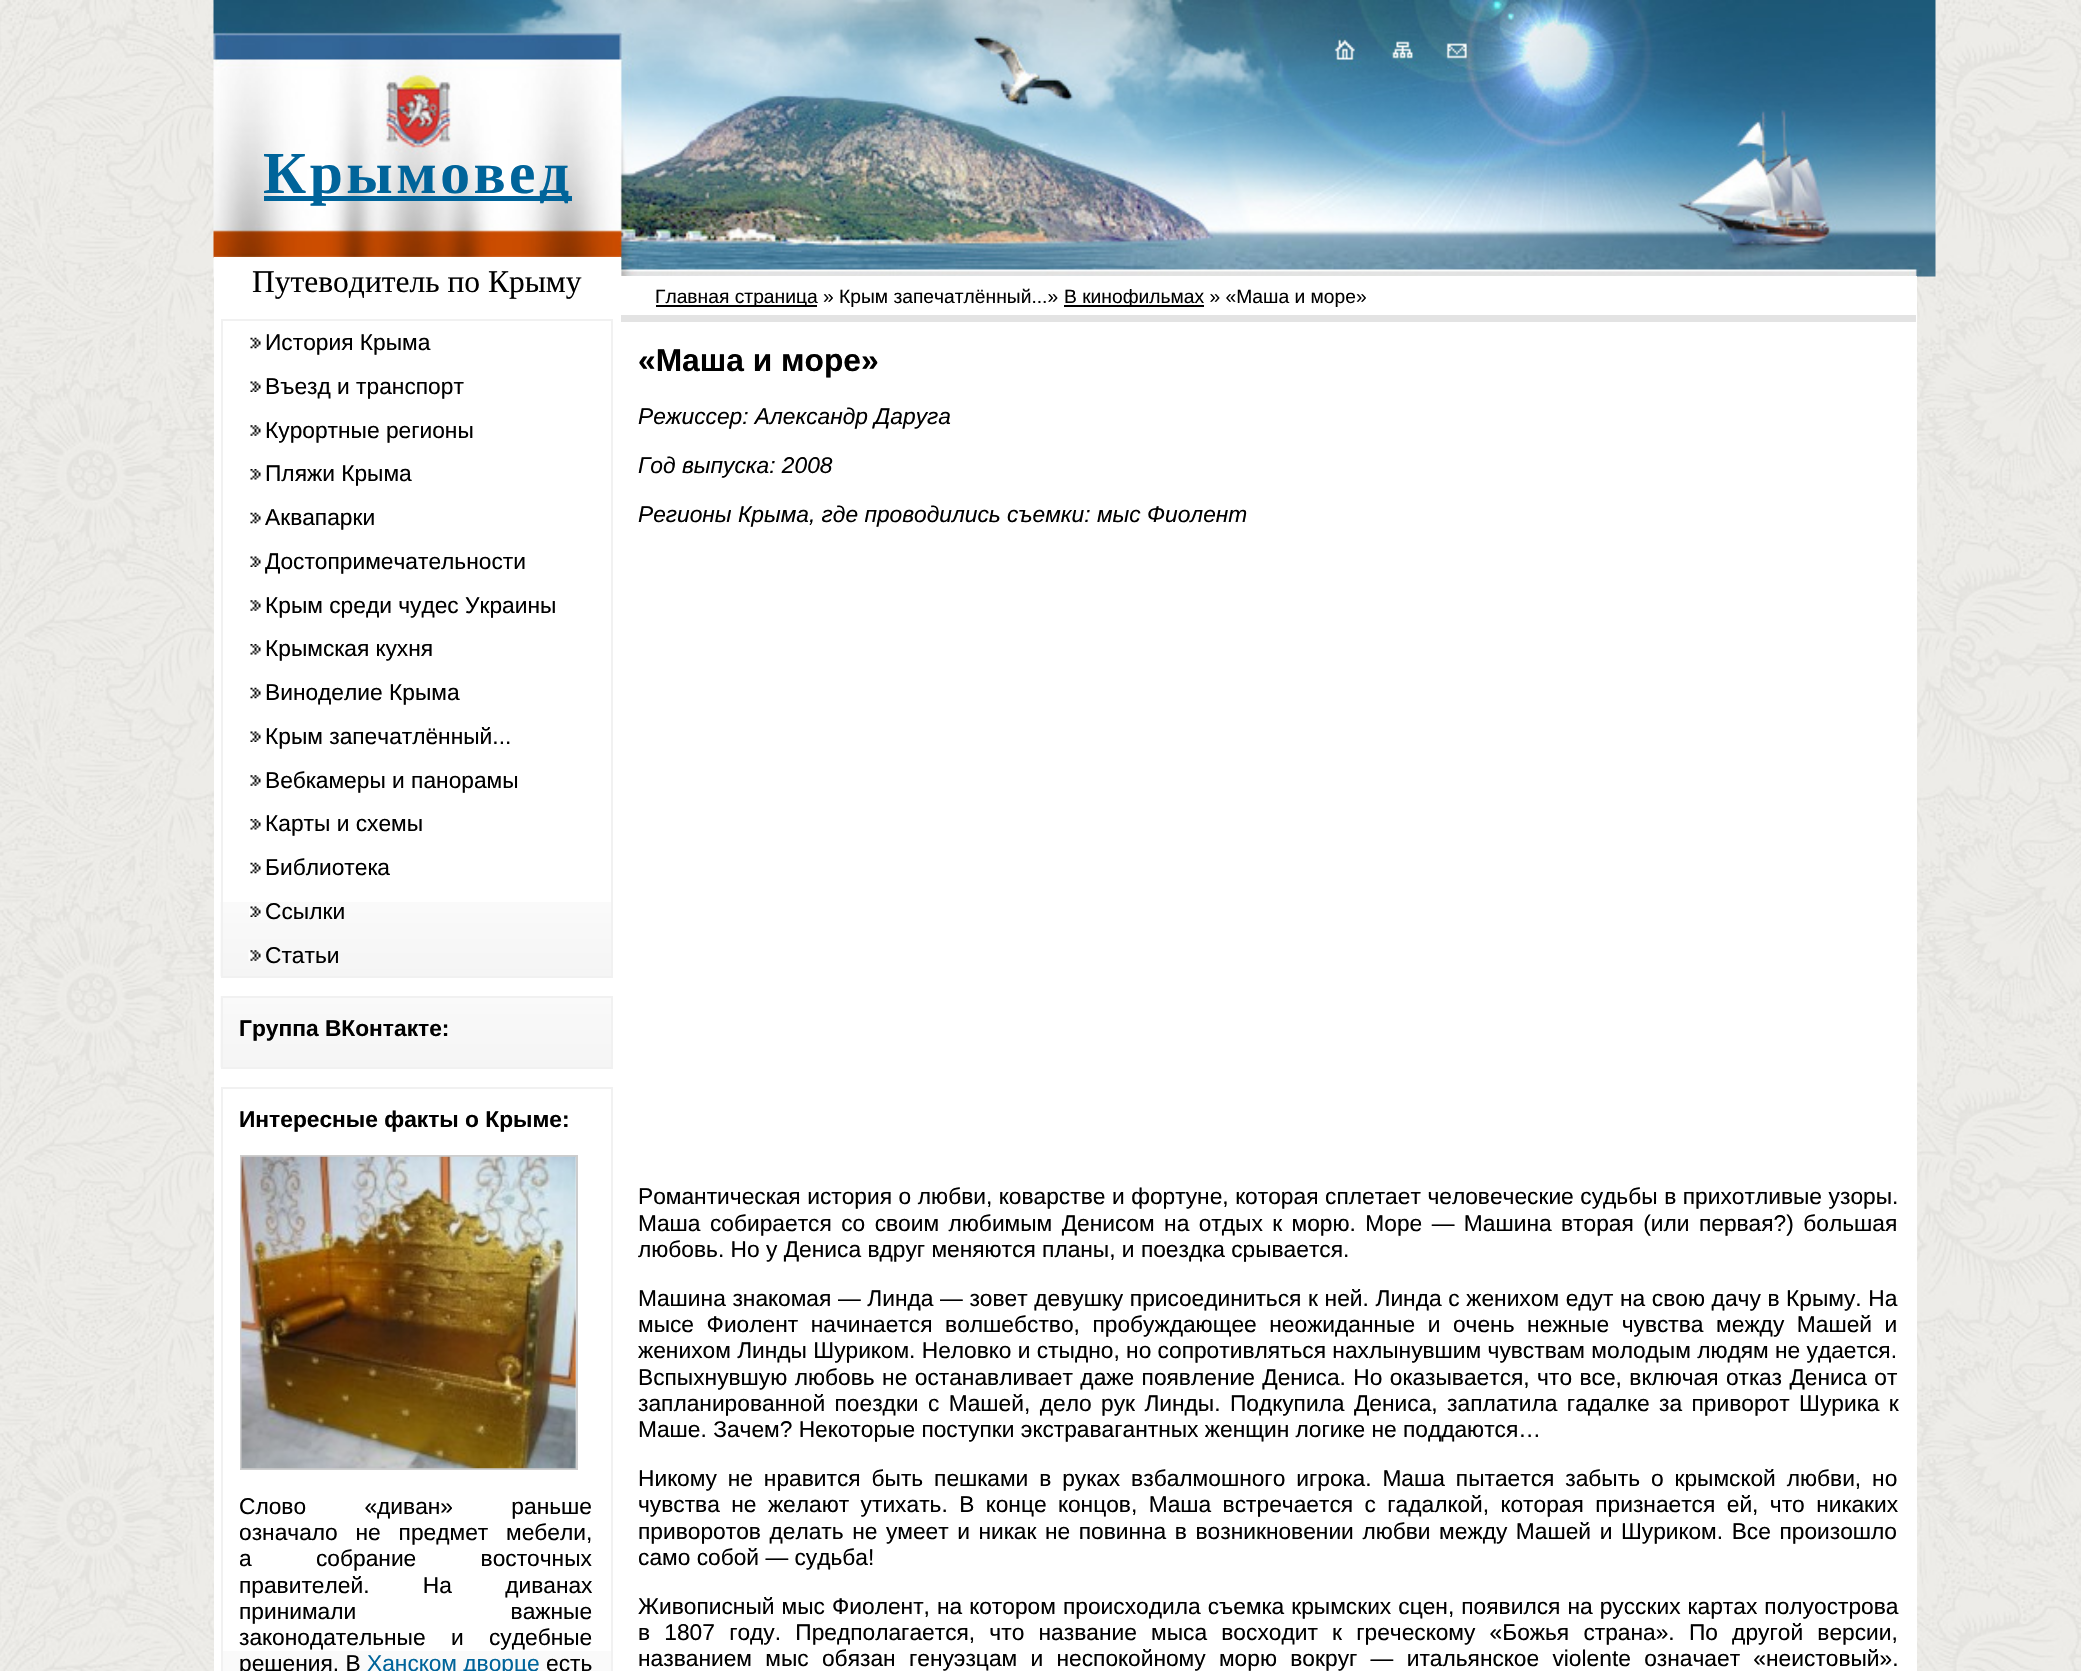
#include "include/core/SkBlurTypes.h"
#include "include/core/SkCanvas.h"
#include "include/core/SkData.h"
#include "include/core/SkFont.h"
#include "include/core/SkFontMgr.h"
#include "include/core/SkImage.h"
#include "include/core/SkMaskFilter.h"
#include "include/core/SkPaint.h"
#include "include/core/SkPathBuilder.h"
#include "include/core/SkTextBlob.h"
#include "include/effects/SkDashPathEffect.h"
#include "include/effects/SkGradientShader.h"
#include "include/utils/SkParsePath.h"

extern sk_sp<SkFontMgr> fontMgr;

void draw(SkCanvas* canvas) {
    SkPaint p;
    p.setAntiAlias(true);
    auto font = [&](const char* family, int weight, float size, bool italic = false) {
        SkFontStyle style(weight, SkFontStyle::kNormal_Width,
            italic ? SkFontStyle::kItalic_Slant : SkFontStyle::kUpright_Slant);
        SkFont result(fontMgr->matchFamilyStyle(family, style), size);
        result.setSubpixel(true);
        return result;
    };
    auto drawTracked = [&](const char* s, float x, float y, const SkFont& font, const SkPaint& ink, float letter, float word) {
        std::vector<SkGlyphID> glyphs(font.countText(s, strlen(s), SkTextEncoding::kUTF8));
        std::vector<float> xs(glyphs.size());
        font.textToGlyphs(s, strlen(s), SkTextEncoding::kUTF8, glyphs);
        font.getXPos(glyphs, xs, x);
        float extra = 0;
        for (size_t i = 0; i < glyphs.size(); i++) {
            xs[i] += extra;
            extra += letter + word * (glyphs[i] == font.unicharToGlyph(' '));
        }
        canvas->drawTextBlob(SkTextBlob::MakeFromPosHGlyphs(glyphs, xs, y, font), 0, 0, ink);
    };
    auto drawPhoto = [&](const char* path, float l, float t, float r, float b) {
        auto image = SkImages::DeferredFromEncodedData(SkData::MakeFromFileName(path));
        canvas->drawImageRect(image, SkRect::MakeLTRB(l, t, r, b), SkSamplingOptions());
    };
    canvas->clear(0xFFFFFFFF);
    drawPhoto("media/1.png", 0, 0, 2081, 1671);
    drawPhoto("media/2.png", 213, 0, 1936, 277);
    p.setColor(0xFF00649A);
    canvas->drawRect(SkRect::MakeLTRB(264, 196, 572, 201), p);
    auto font1 = font("Liberation Serif", 700, 59.5f);
    drawTracked("Крымовед", 263, 193, font1, p, 3.5f, 0);
    p.setColor(0xFFFFFFFF);
    canvas->drawRect(SkRect::MakeLTRB(214, 257, 621, 1671), p);
    auto font2 = font("Liberation Serif", 400, 31.5f);
    p.setColor(0xFF000000);
    canvas->drawString("Путеводитель по Крыму", 252, 292, font2, p);
    drawPhoto("media/3.png", 220, 902, 611, 977);
    p.setStyle(SkPaint::kStroke_Style);
    p.setStrokeWidth(2);
    p.setColor(0xFFF1F1F1);
    canvas->drawRect(SkRect::MakeLTRB(222, 320, 612, 977), p);
    drawPhoto("media/4.png", 250, 337, 261, 349);
    auto font3 = font("Liberation Sans", 400, 22.75f);
    p.setStyle(SkPaint::kFill_Style);
    p.setColor(0xFF000000);
    canvas->drawString("История Крыма", 265, 350, font3, p);
    drawPhoto("media/5.png", 250, 381, 261, 392);
    canvas->drawString("Въезд и транспорт", 265, 394, font3, p);
    drawPhoto("media/6.png", 250, 425, 261, 436);
    canvas->drawString("Курортные регионы", 265, 438, font3, p);
    drawPhoto("media/7.png", 250, 469, 261, 480);
    canvas->drawString("Пляжи Крыма", 265, 481, font3, p);
    drawPhoto("media/4.png", 250, 512, 261, 524);
    canvas->drawString("Аквапарки", 265, 525, font3, p);
    drawPhoto("media/5.png", 250, 556, 261, 567);
    canvas->drawString("Достопримечательности", 265, 569, font3, p);
    drawPhoto("media/6.png", 250, 600, 261, 611);
    canvas->drawString("Крым среди чудес Украины", 265, 613, font3, p);
    drawPhoto("media/7.png", 250, 644, 261, 655);
    canvas->drawString("Крымская кухня", 265, 656, font3, p);
    drawPhoto("media/4.png", 250, 687, 261, 699);
    canvas->drawString("Виноделие Крыма", 265, 700, font3, p);
    drawPhoto("media/5.png", 250, 731, 261, 742);
    canvas->drawString("Крым запечатлённый...", 265, 744, font3, p);
    drawPhoto("media/6.png", 250, 775, 261, 786);
    canvas->drawString("Вебкамеры и панорамы", 265, 788, font3, p);
    drawPhoto("media/7.png", 250, 819, 261, 830);
    canvas->drawString("Карты и схемы", 265, 831, font3, p);
    drawPhoto("media/4.png", 250, 862, 261, 874);
    canvas->drawString("Библиотека", 265, 875, font3, p);
    drawPhoto("media/8.png", 249, 906, 262, 917);
    canvas->drawString("Ссылки", 265, 919, font3, p);
    drawPhoto("media/9.png", 248, 950, 263, 961);
    canvas->drawString("Статьи", 265, 963, font3, p);
    drawPhoto("media/10.png", 220, 996, 611, 1068);
    p.setStyle(SkPaint::kStroke_Style);
    p.setColor(0xFFF1F1F1);
    canvas->drawRect(SkRect::MakeLTRB(222, 997, 612, 1068), p);
    auto font4 = font("Liberation Sans", 700, 22.75f);
    p.setStyle(SkPaint::kFill_Style);
    p.setColor(0xFF000000);
    canvas->drawString("Группа ВКонтакте:", 239, 1036, font4, p);
    p.setColor(0xFFFAFAFA);
    canvas->drawRect(SkRect::MakeLTRB(223, 1651, 611, 1671), p);
    p.setStyle(SkPaint::kStroke_Style);
    p.setColor(0xFFF1F1F1);
    canvas->drawRect(SkRect::MakeLTRB(222, 1088, 612, 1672), p);
    p.setStyle(SkPaint::kFill_Style);
    p.setColor(0xFF000000);
    canvas->drawString("Интересные факты о Крыме:", 239, 1127, font4, p);
    p.setStyle(SkPaint::kStroke_Style);
    p.setColor(0xFFCDCDCD);
    canvas->drawRect(SkRect::MakeLTRB(241, 1156, 577, 1469), p);
    drawPhoto("media/11.png", 241, 1156, 576, 1469);
    p.setStyle(SkPaint::kFill_Style);
    p.setColor(0xFF000000);
    drawTracked("Слово «диван» раньше", 239, 1514, font3, p, 0, 52);
    drawTracked("означало не предмет мебели,", 239, 1540, font3, p, 0, 11.5f);
    drawTracked("а собрание восточных", 239, 1566, font3, p, 0, 58);
    drawTracked("правителей. На диванах", 239, 1593, font3, p, 0, 47);
    drawTracked("принимали важные", 239, 1619, font3, p, 0, 148);
    drawTracked("законодательные и судебные", 239, 1645, font3, p, 0, 19);
    canvas->drawString("решения. В", 239, 1671, font3, p);
    p.setColor(0xFF00649A);
    canvas->drawString("Ханском дворце", 367, 1671, font3, p);
    p.setColor(0xFF000000);
    canvas->drawString("есть", 546, 1671, font3, p);
    {
        const struct { float l, t, r, b; SkColor color; } items[] = {
            {621, 276, 1917, 1671, 0xFFFFFFFF},
            {621, 315, 1916, 322, 0xFFE3E3E3},
            {656, 305, 817, 307, 0xFF000000},
        };
        for (auto [l, t, r, b, color] : items) {
            p.setColor(color);
            canvas->drawRect(SkRect::MakeLTRB(l, t, r, b), p);
        }
    }
    auto font5 = font("Liberation Sans", 400, 19.25f);
    canvas->drawString("Главная страница » Крым запечатлённый...»", 655, 303, font5, p);
    canvas->drawRect(SkRect::MakeLTRB(1064, 305, 1204, 307), p);
    canvas->drawString("В кинофильмах » «Маша и море»", 1064, 303, font5, p);
    auto font6 = font("Liberation Sans", 700, 31.75f);
    canvas->drawString("«Маша и море»", 638, 371, font6, p);
    auto font7 = font("Liberation Sans", 400, 22.75f, true);
    {
        const struct { const char* s; float x, y; } items[] = {
            {"Режиссер: Александр Даруга", 638, 424},
            {"Год выпуска: 2008", 638, 473},
            {"Регионы Крыма, где проводились съемки: мыс Фиолент", 638, 522},
        };
        for (auto [s, x, y] : items) {
            canvas->drawString(s, x, y, font7, p);
        }
    }
    drawTracked("Романтическая история о любви, коварстве и фортуне, которая сплетает человеческие судьбы в прихотливые узоры.", 638, 1204, font3, p, 0, 0.25f);
    drawTracked("Маша собирается со своим любимым Денисом на отдых к морю. Море — Машина вторая (или первая?) большая", 638, 1231, font3, p, 0, 3.1f);
    canvas->drawString("любовь. Но у Дениса вдруг меняются планы, и поездка срывается.", 638, 1257, font3, p);
    drawTracked("Машина знакомая — Линда — зовет девушку присоединиться к ней. Линда с женихом едут на свою дачу в Крыму. На", 638, 1306, font3, p, 0, 0.3f);
    drawTracked("мысе Фиолент начинается волшебство, пробуждающее неожиданные и очень нежные чувства между Машей и", 638, 1332, font3, p, 0, 6.25f);
    canvas->drawString("женихом Линды Шуриком. Неловко и стыдно, но сопротивляться нахлынувшим чувствам молодым людям не удается.", 638, 1358, font3, p);
    drawTracked("Вспыхнувшую любовь не останавливает даже появление Дениса. Но оказывается, что все, включая отказ Дениса от", 638, 1385, font3, p, 0, 1.1f);
    drawTracked("запланированной поездки с Машей, дело рук Линды. Подкупила Дениса, заплатила гадалке за приворот Шурика к", 638, 1411, font3, p, 0, 3.1f);
    canvas->drawString("Маше. Зачем? Некоторые поступки экстравагантных женщин логике не поддаются…", 638, 1437, font3, p);
    drawTracked("Никому не нравится быть пешками в руках взбалмошного игрока. Маша пытается забыть о крымской любви, но", 638, 1486, font3, p, 0, 4.6f);
    drawTracked("чувства не желают утихать. В конце концов, Маша встречается с гадалкой, которая признается ей, что никаких", 638, 1512, font3, p, 0, 5.1f);
    drawTracked("приворотов делать не умеет и никак не повинна в возникновении любви между Машей и Шуриком. Все произошло", 638, 1539, font3, p, 0, 2.25f);
    canvas->drawString("само собой — судьба!", 638, 1565, font3, p);
    drawTracked("Живописный мыс Фиолент, на котором происходила съемка крымских сцен, появился на русских картах полуострова", 638, 1614, font3, p, 0, 0.75f);
    drawTracked("в 1807 году. Предполагается, что название мыса восходит к греческому «Божья страна». По другой версии,", 638, 1640, font3, p, 0, 7.9f);
    drawTracked("названием мыс обязан генуэзцам и неспокойному морю вокруг — итальянское violente означает «неистовый».", 638, 1666, font3, p, 0, 7);
}
